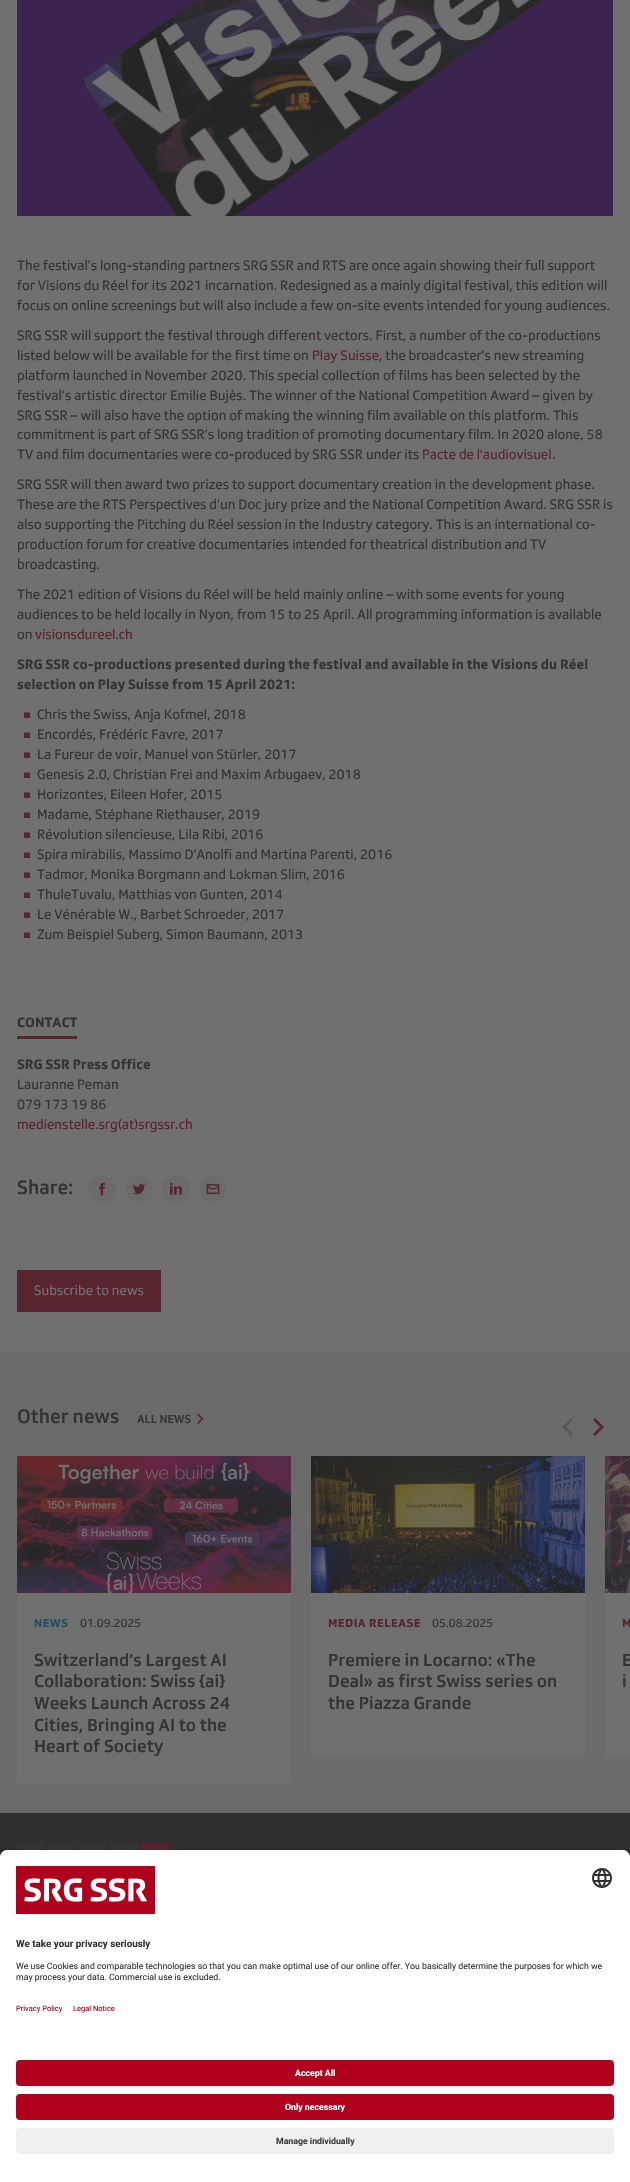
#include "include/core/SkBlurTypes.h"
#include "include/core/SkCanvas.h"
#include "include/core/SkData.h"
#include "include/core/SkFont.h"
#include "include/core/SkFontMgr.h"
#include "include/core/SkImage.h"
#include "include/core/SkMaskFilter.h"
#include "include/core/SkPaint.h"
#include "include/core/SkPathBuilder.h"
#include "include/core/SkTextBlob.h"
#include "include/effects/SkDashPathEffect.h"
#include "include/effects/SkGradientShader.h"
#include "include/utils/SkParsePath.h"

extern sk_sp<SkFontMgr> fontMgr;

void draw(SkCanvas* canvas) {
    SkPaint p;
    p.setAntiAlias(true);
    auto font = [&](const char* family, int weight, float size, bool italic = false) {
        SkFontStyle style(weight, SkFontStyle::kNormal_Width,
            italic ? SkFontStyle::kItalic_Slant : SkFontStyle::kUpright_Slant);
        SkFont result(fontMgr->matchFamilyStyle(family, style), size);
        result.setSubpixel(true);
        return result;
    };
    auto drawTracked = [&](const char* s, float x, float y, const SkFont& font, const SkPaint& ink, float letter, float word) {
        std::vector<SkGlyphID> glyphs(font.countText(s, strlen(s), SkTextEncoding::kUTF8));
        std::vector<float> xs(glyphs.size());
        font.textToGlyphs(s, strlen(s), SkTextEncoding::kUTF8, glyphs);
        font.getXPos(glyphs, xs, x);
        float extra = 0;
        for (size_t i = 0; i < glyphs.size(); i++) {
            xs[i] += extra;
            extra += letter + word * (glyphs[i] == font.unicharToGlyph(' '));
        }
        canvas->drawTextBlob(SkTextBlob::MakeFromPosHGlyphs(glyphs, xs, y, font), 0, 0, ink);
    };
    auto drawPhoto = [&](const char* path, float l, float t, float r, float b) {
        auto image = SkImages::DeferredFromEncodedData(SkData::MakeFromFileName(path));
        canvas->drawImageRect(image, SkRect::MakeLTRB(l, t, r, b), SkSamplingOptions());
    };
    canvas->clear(0xFF2F2F2F);
    p.setColor(0xFF707070);
    canvas->drawRect(SkRect::MakeLTRB(0, 0, 630, 1352), p);
    drawPhoto("media/1.png", 17, 0, 613, 216);
    auto font1 = font("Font", 400, 14);
    p.setColor(0xFF333333);
    {
        const struct { const char* s; float x, y; } items[] = {
            {"The festival’s long-standing partners SRG SSR and RTS are once again showing their full support", 17, 270},
            {"for Visions du Réel for its 2021 incarnation. Redesigned as a mainly digital festival, this edition will", 17, 290},
            {"focus on online screenings but will also include a few on-site events intended for young audiences.", 17, 310},
            {"SRG SSR will support the festival through different vectors. First, a number of the co-productions", 17, 340},
            {"listed below will be available for the first time on", 17, 360},
        };
        for (auto [s, x, y] : items) {
            canvas->drawString(s, x, y, font1, p);
        }
    }
    p.setColor(0xFF58242D);
    canvas->drawString("Play Suisse", 312, 360, font1, p);
    p.setColor(0xFF333333);
    {
        const struct { const char* s; float x, y; } items[] = {
            {", the broadcaster’s new streaming", 379, 360},
            {"platform launched in November 2020. This special collection of films has been selected by the", 17, 380},
            {"festival’s artistic director Emilie Bujès. The winner of the National Competition Award – given by", 17, 400},
            {"SRG SSR – will also have the option of making the winning film available on this platform. This", 17, 420},
            {"commitment is part of SRG SSR’s long tradition of promoting documentary film. In 2020 alone, 58", 17, 439},
            {"TV and film documentaries were co-produced by SRG SSR under its", 17, 459},
        };
        for (auto [s, x, y] : items) {
            canvas->drawString(s, x, y, font1, p);
        }
    }
    p.setColor(0xFF58242D);
    canvas->drawString("Pacte de l'audiovisuel", 422, 459, font1, p);
    p.setColor(0xFF333333);
    {
        const struct { const char* s; float x, y; } items[] = {
            {".", 552, 459},
            {"SRG SSR will then award two prizes to support documentary creation in the development phase.", 17, 489},
            {"These are the RTS Perspectives d’un Doc jury prize and the National Competition Award. SRG SSR is", 17, 509},
            {"also supporting the Pitching du Réel session in the Industry category. This is an international co-", 17, 529},
            {"production forum for creative documentaries intended for theatrical distribution and TV", 17, 549},
            {"broadcasting.", 17, 569},
            {"The 2021 edition of Visions du Réel will be held mainly online – with some events for young", 17, 599},
            {"audiences to be held locally in Nyon, from 15 to 25 April. All programming information is available", 17, 619},
            {"on", 17, 639},
        };
        for (auto [s, x, y] : items) {
            canvas->drawString(s, x, y, font1, p);
        }
    }
    p.setColor(0xFF58242D);
    canvas->drawString("visionsdureel.ch", 35, 639, font1, p);
    auto font2 = font("Font", 700, 14);
    p.setColor(0xFF333333);
    canvas->drawString("SRG SSR co-productions presented during the festival and available in the Visions du Réel", 17, 669, font2, p);
    canvas->drawString("selection on Play Suisse from 15 April 2021:", 17, 689, font2, p);
    p.setColor(0xFF58242D);
    canvas->drawPath(SkPathBuilder().moveTo(30, 712.5f).lineTo(30, 718).lineTo(24, 718).lineTo(24, 712.5f).close().detach(), p);
    p.setColor(0xFF333333);
    canvas->drawString("Chris the Swiss, Anja Kofmel, 2018", 37, 719, font1, p);
    p.setColor(0xFF58242D);
    canvas->drawPath(SkPathBuilder().moveTo(30, 732.5f).lineTo(30, 738).lineTo(24, 738).lineTo(24, 732.5f).close().detach(), p);
    p.setColor(0xFF333333);
    canvas->drawString("Encordés, Frédéric Favre, 2017", 37, 739, font1, p);
    p.setColor(0xFF58242D);
    canvas->drawPath(SkPathBuilder().moveTo(30, 752.5f).lineTo(30, 758).lineTo(24, 758).lineTo(24, 752.5f).close().detach(), p);
    p.setColor(0xFF333333);
    canvas->drawString("La Fureur de voir, Manuel von Stürler, 2017", 37, 759, font1, p);
    p.setColor(0xFF58242D);
    canvas->drawPath(SkPathBuilder().moveTo(30, 772.5f).lineTo(30, 778).lineTo(24, 778).lineTo(24, 772.5f).close().detach(), p);
    p.setColor(0xFF333333);
    canvas->drawString("Genesis 2.0, Christian Frei and Maxim Arbugaev, 2018", 37, 779, font1, p);
    p.setColor(0xFF58242D);
    canvas->drawPath(SkPathBuilder().moveTo(30, 792.5f).lineTo(30, 798).lineTo(24, 798).lineTo(24, 792.5f).close().detach(), p);
    p.setColor(0xFF333333);
    canvas->drawString("Horizontes, Eileen Hofer, 2015", 37, 799, font1, p);
    p.setColor(0xFF58242D);
    canvas->drawPath(SkPathBuilder().moveTo(30, 812.5f).lineTo(30, 818).lineTo(24, 818).lineTo(24, 812.5f).close().detach(), p);
    p.setColor(0xFF333333);
    canvas->drawString("Madame, Stéphane Riethauser, 2019", 37, 819, font1, p);
    p.setColor(0xFF58242D);
    canvas->drawPath(SkPathBuilder().moveTo(30, 832.5f).lineTo(30, 838).lineTo(24, 838).lineTo(24, 832.5f).close().detach(), p);
    p.setColor(0xFF333333);
    canvas->drawString("Révolution silencieuse, Lila Ribi, 2016", 37, 839, font1, p);
    p.setColor(0xFF58242D);
    canvas->drawPath(SkPathBuilder().moveTo(30, 852.5f).lineTo(30, 858).lineTo(24, 858).lineTo(24, 852.5f).close().detach(), p);
    p.setColor(0xFF333333);
    canvas->drawString("Spira mirabilis, Massimo D’Anolfi and Martina Parenti, 2016", 37, 859, font1, p);
    p.setColor(0xFF58242D);
    canvas->drawPath(SkPathBuilder().moveTo(30, 872.5f).lineTo(30, 878).lineTo(24, 878).lineTo(24, 872.5f).close().detach(), p);
    p.setColor(0xFF333333);
    canvas->drawString("Tadmor, Monika Borgmann and Lokman Slim, 2016", 37, 879, font1, p);
    p.setColor(0xFF58242D);
    canvas->drawPath(SkPathBuilder().moveTo(30, 892.5f).lineTo(30, 898).lineTo(24, 898).lineTo(24, 892.5f).close().detach(), p);
    p.setColor(0xFF333333);
    canvas->drawString("ThuleTuvalu, Matthias von Gunten, 2014", 37, 899, font1, p);
    p.setColor(0xFF58242D);
    canvas->drawPath(SkPathBuilder().moveTo(30, 912.5f).lineTo(30, 918).lineTo(24, 918).lineTo(24, 912.5f).close().detach(), p);
    p.setColor(0xFF333333);
    canvas->drawString("Le Vénérable W., Barbet Schroeder, 2017", 37, 919, font1, p);
    p.setColor(0xFF58242D);
    canvas->drawPath(SkPathBuilder().moveTo(30, 932.5f).lineTo(30, 938).lineTo(24, 938).lineTo(24, 932.5f).close().detach(), p);
    p.setColor(0xFF333333);
    canvas->drawString("Zum Beispiel Suberg, Simon Baumann, 2013", 37, 939, font1, p);
    p.setColor(0xFF58242D);
    canvas->drawRect(SkRect::MakeLTRB(17, 1036, 77, 1039), p);
    p.setColor(0xFF333333);
    canvas->drawString("CONTACT", 17, 1027, font2, p);
    canvas->drawString("SRG SSR Press Office", 17, 1069, font2, p);
    canvas->drawString("Lauranne Peman", 17, 1089, font1, p);
    canvas->drawString("079 173 19 86", 17, 1109, font1, p);
    p.setColor(0xFF58242D);
    canvas->drawString("medienstelle.srg(at)srgssr.ch", 17, 1129, font1, p);
    auto font3 = font("Font", 500, 20);
    p.setColor(0xFF333333);
    canvas->drawString("Share:", 17, 1194, font3, p);
    p.setColor(0xFF6B6B6B);
    canvas->drawCircle(102, 1189, 14, p);
    drawPhoto("media/2.png", 98, 1182, 106, 1196);
    canvas->drawCircle(139, 1189, 14, p);
    drawPhoto("media/3.png", 133, 1184, 146, 1195);
    canvas->drawCircle(176, 1189, 14, p);
    drawPhoto("media/4.png", 170, 1182, 182, 1195);
    canvas->drawCircle(213, 1189, 14, p);
    drawPhoto("media/5.png", 206, 1184, 220, 1195);
    p.setColor(0xFF58242D);
    canvas->drawRect(SkRect::MakeLTRB(17, 1270, 161, 1312), p);
    p.setColor(0xFF707070);
    canvas->drawString("Subscribe to news", 34, 1295, font1, p);
    p.setColor(0xFF6B6B6B);
    canvas->drawRect(SkRect::MakeLTRB(0, 1352, 630, 1813), p);
    p.setColor(0xFF333333);
    canvas->drawString("Other news", 17, 1423, font3, p);
    auto font4 = font("Font", 500, 12);
    canvas->drawString("ALL NEWS", 137, 1423, font4, p);
    drawPhoto("media/6.png", 197, 1413, 204, 1425);
    p.setColor(0xFF595959);
    canvas->drawPath(SkPathBuilder().moveTo(566, 1427).lineTo(573, 1434).lineTo(571, 1436).lineTo(562, 1427).lineTo(571, 1418).lineTo(573, 1420).close().detach(), p);
    p.setColor(0xFF58242D);
    canvas->drawPath(SkPathBuilder().moveTo(604, 1427).lineTo(595, 1436).lineTo(593, 1434).lineTo(600, 1427).lineTo(593, 1420).lineTo(595, 1418).close().detach(), p);
    p.setColor(0xFF707070);
    canvas->drawRect(SkRect::MakeLTRB(17, 1593, 291, 1783), p);
    drawPhoto("media/7.png", 17, 1456, 291, 1593);
    auto font5 = font("Font", 700, 12);
    p.setColor(0xFF244E61);
    drawTracked("NEWS", 34, 1627, font5, p, 0.5f, 0);
    auto font6 = font("Font", 400, 12);
    p.setColor(0xFF333333);
    canvas->drawString("01.09.2025", 80, 1627, font6, p);
    auto font7 = font("Font", 500, 18);
    {
        const struct { const char* s; float x, y; } items[] = {
            {"Switzerland’s Largest AI", 34, 1666},
            {"Collaboration: Swiss {ai}", 34, 1687},
            {"Weeks Launch Across 24", 34, 1709},
            {"Cities, Bringing AI to the", 34, 1731},
            {"Heart of Society", 34, 1752},
        };
        for (auto [s, x, y] : items) {
            canvas->drawString(s, x, y, font7, p);
        }
    }
    p.setColor(0xFF707070);
    canvas->drawRect(SkRect::MakeLTRB(311, 1593, 585, 1757), p);
    drawPhoto("media/8.png", 311, 1456, 585, 1593);
    p.setColor(0xFF58242D);
    drawTracked("MEDIA RELEASE", 328, 1627, font5, p, 0.5f, 0);
    p.setColor(0xFF333333);
    canvas->drawString("05.08.2025", 432, 1627, font6, p);
    {
        const struct { const char* s; float x, y; } items[] = {
            {"Premiere in Locarno: «The", 328, 1666},
            {"Deal» as first Swiss series on", 328, 1687},
            {"the Piazza Grande", 328, 1709},
        };
        for (auto [s, x, y] : items) {
            canvas->drawString(s, x, y, font7, p);
        }
    }
    p.setColor(0xFF707070);
    canvas->drawRect(SkRect::MakeLTRB(605, 1593, 630, 1757), p);
    drawPhoto("media/9.png", 605, 1456, 630, 1593);
    p.setColor(0xFF58242D);
    drawTracked("M", 622, 1627, font5, p, 0.5f, 0);
    p.setColor(0xFF333333);
    canvas->drawString("E", 622, 1666, font7, p);
    canvas->drawString("i", 622, 1687, font7, p);
    {
        const struct { float l, t, r, b; SkColor color; } items[] = {
            {17, 1843, 45, 1850, 0xFF333333},
            {48, 1843, 76, 1850, 0xFF333333},
            {79, 1843, 107, 1850, 0xFF333333},
            {110, 1843, 138, 1850, 0xFF333333},
            {141, 1843, 169, 1850, 0xFF58242D},
        };
        for (auto [l, t, r, b, color] : items) {
            p.setColor(color);
            canvas->drawRect(SkRect::MakeLTRB(l, t, r, b), p);
        }
    }
    p.setColor(0x4D000000);
    p.setMaskFilter(SkMaskFilter::MakeBlur(kNormal_SkBlurStyle, 14));
    canvas->drawRoundRect(SkRect::MakeLTRB(0, 1870, 630, 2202), 8, 8, p);
    p.setMaskFilter(nullptr);
    p.setColor(0xFFFFFFFF);
    canvas->drawPath(SkPathBuilder().moveTo(8, 1850).lineTo(622, 1850).cubicTo(626.5f, 1850, 630, 1853.5f, 630, 1858).lineTo(630, 2182).lineTo(0, 2182).lineTo(0, 1858).cubicTo(0, 1853.5f, 3.5f, 1850, 8, 1850).close().detach(), p);
    canvas->drawPath(SkPathBuilder().moveTo(8, 1850).lineTo(622, 1850).cubicTo(626.5f, 1850, 630, 1853.5f, 630, 1858).lineTo(630, 2048).lineTo(0, 2048).lineTo(0, 1858).cubicTo(0, 1853.5f, 3.5f, 1850, 8, 1850).close().detach(), p);
    drawPhoto("media/10.png", 16, 1866, 155, 1914);
    drawPhoto("media/11.png", 592, 1868, 612, 1888);
    auto font8 = font("Roboto", 700, 9.8f);
    p.setColor(0xFF333333);
    canvas->drawString("We take your privacy seriously", 16, 1947, font8, p);
    auto font9 = font("Roboto", 400, 8.75f);
    canvas->drawString("We use Cookies and comparable technologies so that you can make optimal use of our online offer. You basically determine the purposes for which we", 16, 1969, font9, p);
    canvas->drawString("may process your data. Commercial use is excluded.", 16, 1980, font9, p);
    auto font10 = font("Roboto", 400, 7.5f);
    p.setColor(0xFFAF001E);
    canvas->drawString("Privacy Policy", 16, 2011, font10, p);
    canvas->drawString("Legal Notice", 73, 2011, font10, p);
    canvas->drawRoundRect(SkRect::MakeLTRB(16, 2060, 614, 2086), 4, 4, p);
    auto font11 = font("Roboto", 700, 8.75f);
    p.setColor(0xFFFFFFFF);
    canvas->drawString("Accept All", 295, 2076, font11, p);
    p.setColor(0xFFAF001E);
    canvas->drawRoundRect(SkRect::MakeLTRB(16, 2094, 614, 2120), 4, 4, p);
    p.setColor(0xFFFFFFFF);
    canvas->drawString("Only necessary", 285, 2110, font11, p);
    p.setColor(0xFFF0F0F0);
    canvas->drawRoundRect(SkRect::MakeLTRB(16, 2128, 614, 2154), 4, 4, p);
    p.setColor(0xFF3F3F3F);
    canvas->drawString("Manage individually", 276, 2144, font11, p);
}
